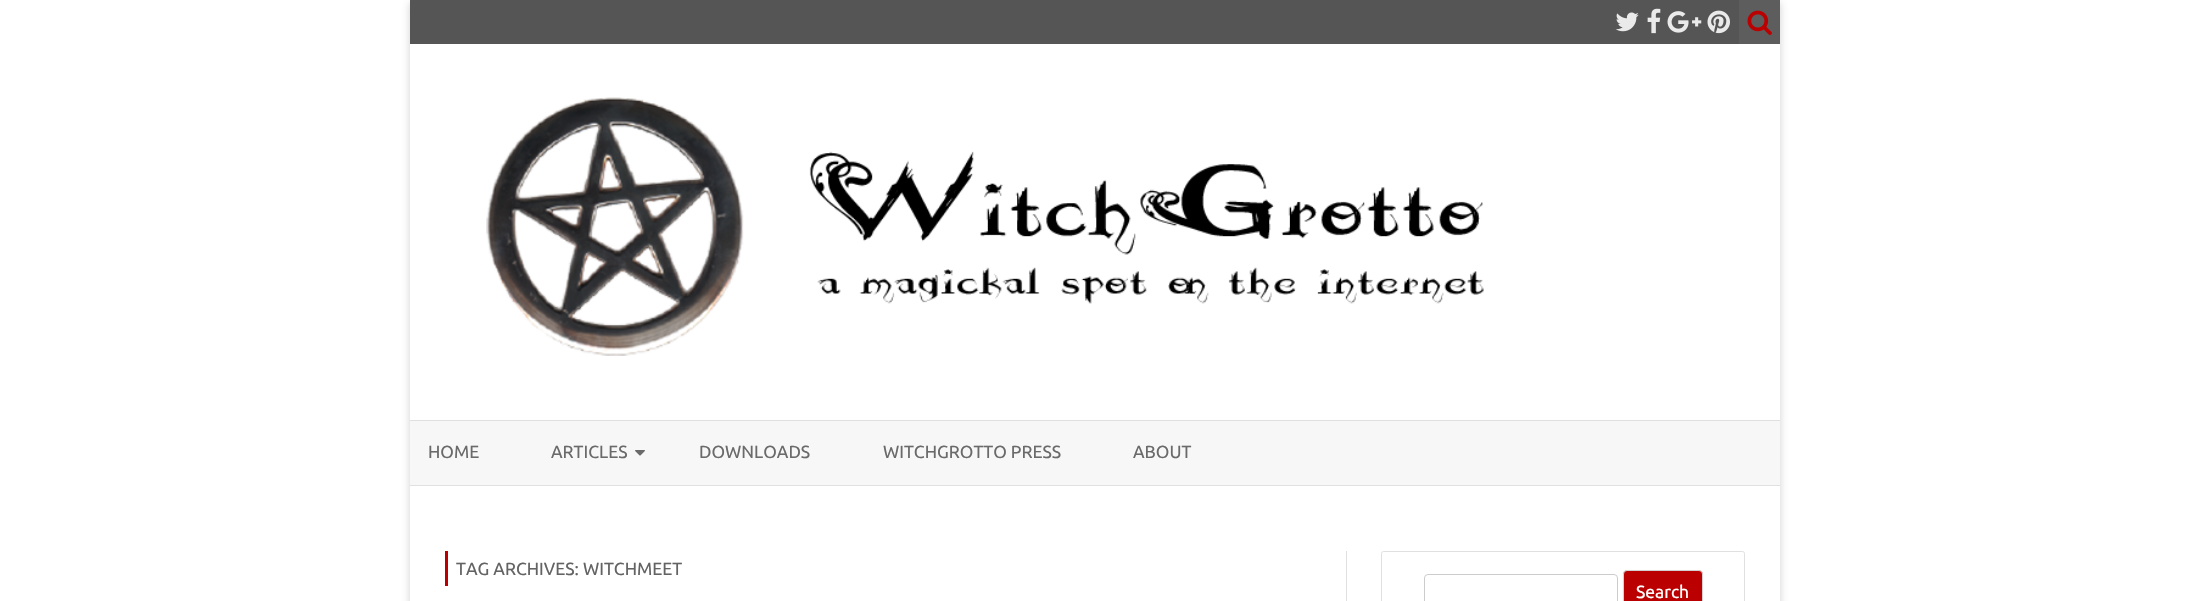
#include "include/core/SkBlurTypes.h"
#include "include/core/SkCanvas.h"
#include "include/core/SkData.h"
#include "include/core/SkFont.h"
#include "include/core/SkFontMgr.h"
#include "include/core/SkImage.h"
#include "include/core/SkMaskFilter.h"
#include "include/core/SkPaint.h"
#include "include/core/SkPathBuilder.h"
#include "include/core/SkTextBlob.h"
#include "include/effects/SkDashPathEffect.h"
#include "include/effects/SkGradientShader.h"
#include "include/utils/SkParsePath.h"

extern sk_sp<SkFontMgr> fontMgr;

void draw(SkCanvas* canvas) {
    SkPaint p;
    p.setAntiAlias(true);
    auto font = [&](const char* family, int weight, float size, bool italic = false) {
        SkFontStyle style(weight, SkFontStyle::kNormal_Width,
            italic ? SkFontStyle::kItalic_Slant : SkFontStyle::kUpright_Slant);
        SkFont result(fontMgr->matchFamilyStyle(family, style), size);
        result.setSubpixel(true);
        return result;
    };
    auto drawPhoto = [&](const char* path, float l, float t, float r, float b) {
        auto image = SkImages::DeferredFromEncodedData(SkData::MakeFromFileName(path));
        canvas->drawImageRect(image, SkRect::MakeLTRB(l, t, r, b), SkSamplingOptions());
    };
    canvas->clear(0xFFFFFFFF);
    canvas->save();
    canvas->clipPath(SkPathBuilder(SkPathFillType::kEvenOdd).moveTo(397, 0).lineTo(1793, 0).lineTo(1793, 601).lineTo(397, 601).close().moveTo(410, 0).lineTo(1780, 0).lineTo(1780, 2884).lineTo(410, 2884).close().detach(), true);
    p.setColor(0x4D646464);
    p.setMaskFilter(SkMaskFilter::MakeBlur(kNormal_SkBlurStyle, 4));
    canvas->drawRect(SkRect::MakeLTRB(410, 3, 1780, 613), p);
    p.setMaskFilter(nullptr);
    canvas->restore();
    p.setColor(0xFF555555);
    canvas->drawRect(SkRect::MakeLTRB(410, 0, 1739, 44), p);
    drawPhoto("media/1.png", 1615, 12, 1639, 32);
    drawPhoto("media/2.png", 1647, 8, 1661, 34);
    drawPhoto("media/3.png", 1667, 11, 1702, 33);
    drawPhoto("media/4.png", 1707, 10, 1730, 34);
    p.setColor(0xFF5D5D5D);
    canvas->drawRect(SkRect::MakeLTRB(1739, 0, 1780, 44), p);
    drawPhoto("media/5.png", 1747, 10, 1772, 35);
    drawPhoto("media/6.png", 486, 97, 1484, 356);
    {
        const struct { float l, t, r, b; SkColor color; } items[] = {
            {410, 421, 1780, 485, 0xFFF7F7F7},
            {410, 420, 1780, 421, 0xFFE0E0E0},
            {410, 485, 1780, 486, 0xFFE0E0E0},
        };
        for (auto [l, t, r, b, color] : items) {
            p.setColor(color);
            canvas->drawRect(SkRect::MakeLTRB(l, t, r, b), p);
        }
    }
    auto font1 = font("Ubuntu", 400, 17.5f);
    p.setColor(0xFF6A6A6A);
    canvas->drawString("HOME", 428, 458, font1, p);
    canvas->drawString("ARTICLES", 551, 458, font1, p);
    drawPhoto("media/7.png", 635, 450, 645, 456);
    {
        const struct { const char* s; float x, y; } items[] = {
            {"DOWNLOADS", 699, 458},
            {"WITCHGROTTO PRESS", 883, 458},
            {"ABOUT", 1133, 458},
        };
        for (auto [s, x, y] : items) {
            canvas->drawString(s, x, y, font1, p);
        }
    }
    p.setColor(0xFFE0E0E0);
    canvas->drawRect(SkRect::MakeLTRB(1346, 551, 1347, 601), p);
    p.setColor(0xFFBA0000);
    canvas->drawRect(SkRect::MakeLTRB(445, 551, 448, 586), p);
    p.setColor(0xFF636363);
    canvas->drawString("TAG ARCHIVES: WITCHMEET", 456, 575, font1, p);
    p.setStyle(SkPaint::kStroke_Style);
    p.setStrokeWidth(1);
    p.setColor(0xFFE0E0E0);
    canvas->drawRoundRect(SkRect::MakeLTRB(1381.5f, 551.5f, 1744.5f, 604.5f), 2, 2, p);
    p.setColor(0xFFCCCCCC);
    canvas->drawRoundRect(SkRect::MakeLTRB(1424.5f, 574.5f, 1617.5f, 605.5f), 3.5f, 3.5f, p);
    p.setStyle(SkPaint::kFill_Style);
    p.setColor(0x1A404040);
    p.setMaskFilter(SkMaskFilter::MakeBlur(kNormal_SkBlurStyle, 1));
    canvas->drawRoundRect(SkRect::MakeLTRB(1623, 571, 1703, 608), 4, 4, p);
    p.setMaskFilter(nullptr);
    p.setColor(0xFFBA0000);
    canvas->drawRoundRect(SkRect::MakeLTRB(1623.5f, 570.5f, 1702.5f, 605.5f), 3.5f, 3.5f, p);
    p.setStyle(SkPaint::kStroke_Style);
    p.setColor(0xFFD2D2D2);
    canvas->drawRoundRect(SkRect::MakeLTRB(1623.5f, 570.5f, 1702.5f, 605.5f), 3.5f, 3.5f, p);
    p.setStyle(SkPaint::kFill_Style);
    p.setColor(0xFFFFFFFF);
    canvas->drawString("Search", 1636, 598, font1, p);
}
